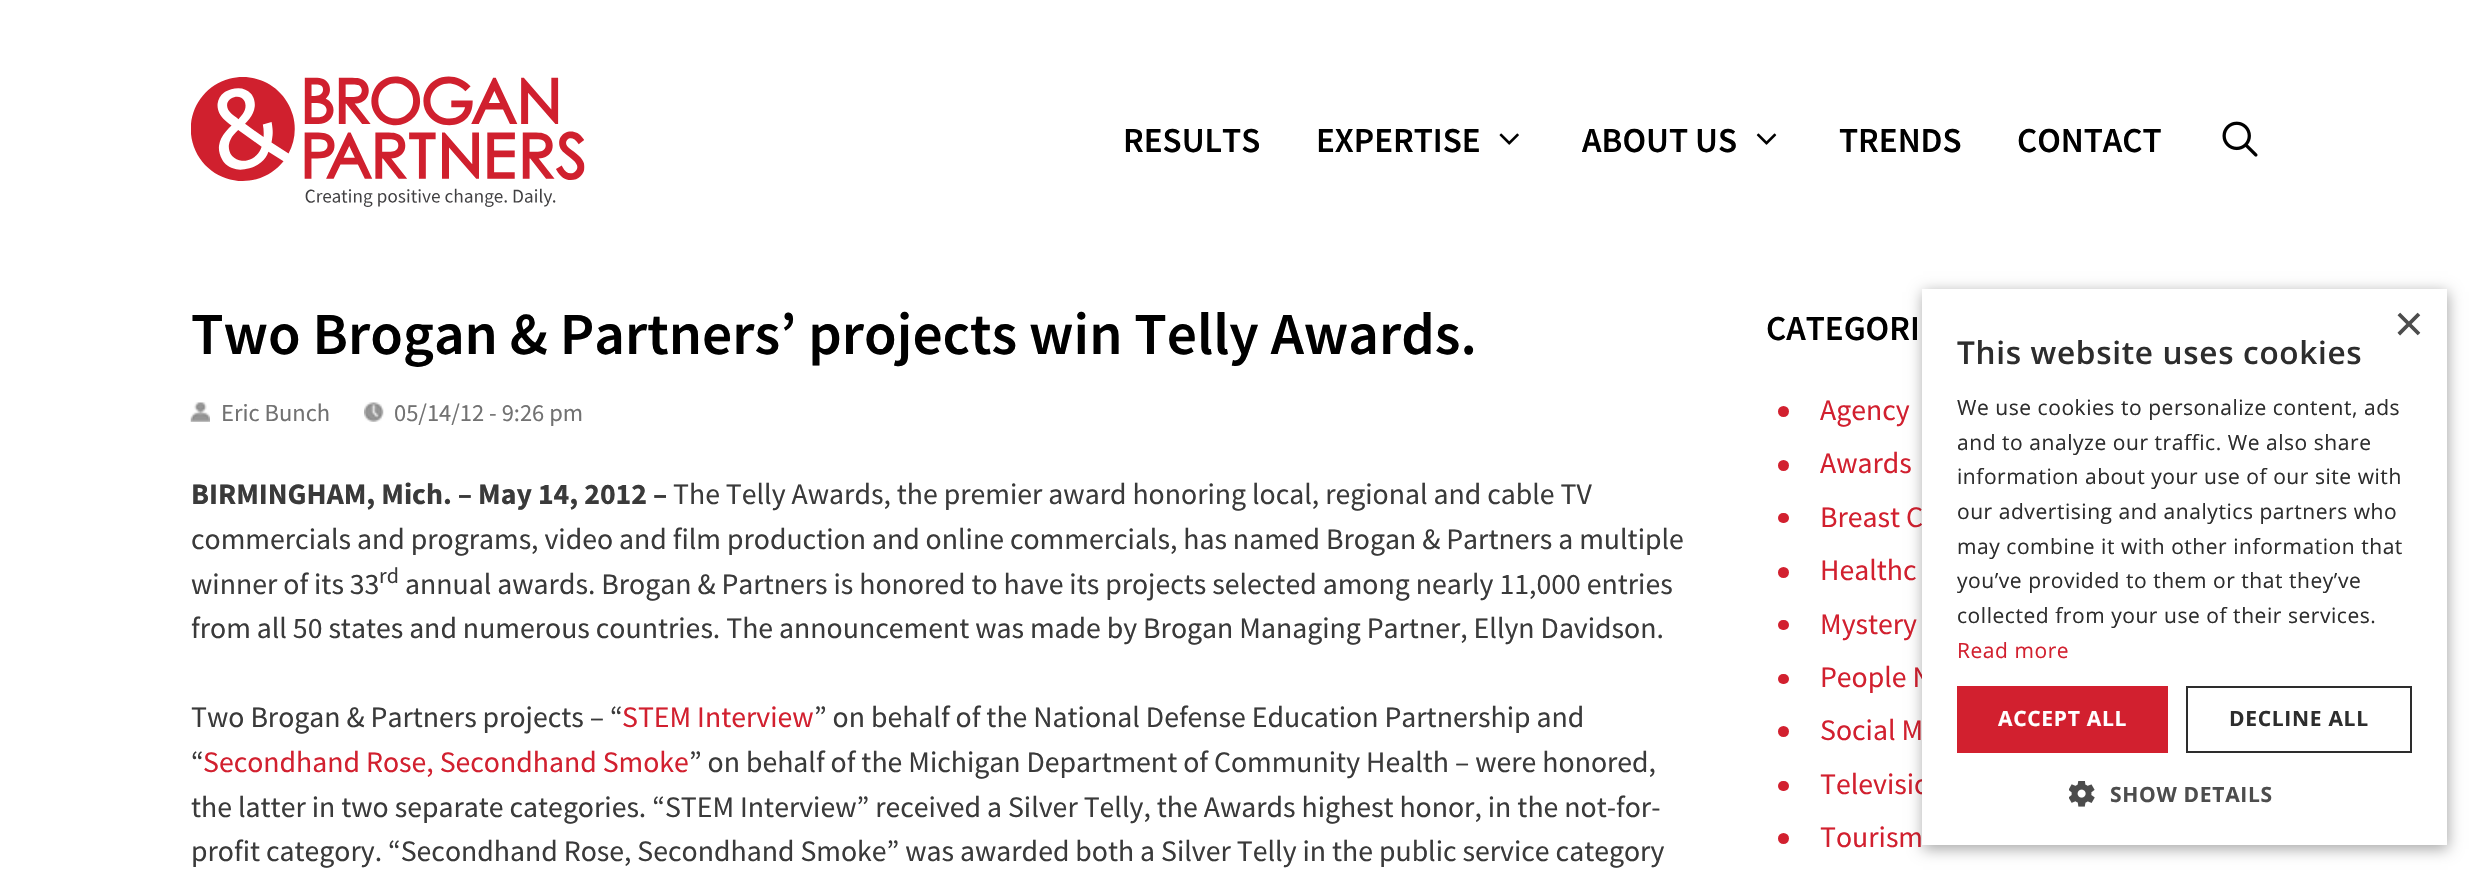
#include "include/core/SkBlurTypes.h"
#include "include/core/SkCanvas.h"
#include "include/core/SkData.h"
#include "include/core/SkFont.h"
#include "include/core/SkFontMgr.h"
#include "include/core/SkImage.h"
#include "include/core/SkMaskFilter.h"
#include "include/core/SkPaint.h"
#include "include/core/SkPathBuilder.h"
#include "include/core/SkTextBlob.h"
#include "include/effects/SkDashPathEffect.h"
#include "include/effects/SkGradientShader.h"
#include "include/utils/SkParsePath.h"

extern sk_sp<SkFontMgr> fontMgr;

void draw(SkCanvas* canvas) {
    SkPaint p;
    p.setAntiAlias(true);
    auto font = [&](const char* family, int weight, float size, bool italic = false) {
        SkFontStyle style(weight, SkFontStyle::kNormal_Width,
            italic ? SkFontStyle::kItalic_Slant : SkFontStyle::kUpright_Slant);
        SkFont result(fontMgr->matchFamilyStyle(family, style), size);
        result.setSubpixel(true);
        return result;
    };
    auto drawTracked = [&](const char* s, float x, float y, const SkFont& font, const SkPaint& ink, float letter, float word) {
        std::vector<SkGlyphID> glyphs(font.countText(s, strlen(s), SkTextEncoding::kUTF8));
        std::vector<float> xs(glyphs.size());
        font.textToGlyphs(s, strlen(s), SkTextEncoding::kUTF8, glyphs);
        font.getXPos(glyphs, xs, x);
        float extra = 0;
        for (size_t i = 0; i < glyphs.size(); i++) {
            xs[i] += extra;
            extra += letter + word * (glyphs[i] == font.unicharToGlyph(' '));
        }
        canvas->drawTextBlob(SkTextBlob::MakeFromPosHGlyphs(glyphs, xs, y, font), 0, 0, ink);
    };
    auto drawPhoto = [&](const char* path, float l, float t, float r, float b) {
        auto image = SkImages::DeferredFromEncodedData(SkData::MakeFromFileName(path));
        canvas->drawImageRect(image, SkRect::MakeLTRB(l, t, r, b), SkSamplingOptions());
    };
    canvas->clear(0xFFFFFFFF);
    drawPhoto("media/1.png", 191, 76, 585, 207);
    auto font1 = font("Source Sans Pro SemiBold", 600, 35);
    p.setColor(0xFF000000);
    canvas->drawString("RESULTS", 1123, 152, font1, p);
    canvas->drawString("EXPERTISE", 1316, 152, font1, p);
    drawPhoto("media/2.png", 1499, 133, 1519, 145);
    canvas->drawString("ABOUT US", 1582, 152, font1, p);
    drawPhoto("media/3.png", 1756, 133, 1777, 145);
    canvas->drawString("TRENDS", 1839, 152, font1, p);
    canvas->drawString("CONTACT", 2017, 152, font1, p);
    drawPhoto("media/4.png", 2222, 121, 2258, 157);
    auto font2 = font("Source Sans Pro SemiBold", 600, 59.5f);
    canvas->drawString("Two Brogan & Partners’ projects win Telly Awards.", 191, 354, font2, p);
    drawPhoto("media/5.png", 190, 402, 210, 422);
    auto font3 = font("Source Sans Pro", 400, 24.5f);
    p.setColor(0xFF727272);
    canvas->drawString("Eric Bunch", 221, 421, font3, p);
    drawPhoto("media/6.png", 364, 402, 384, 422);
    canvas->drawString("05/14/12 - 9:26 pm", 394, 421, font3, p);
    auto font4 = font("Source Sans Pro", 700, 29.75f);
    p.setColor(0xFF3A3A3A);
    canvas->drawString("BIRMINGHAM, Mich. – May 14, 2012 –", 191, 504, font4, p);
    auto font5 = font("Source Sans Pro", 400, 29.75f);
    {
        const struct { const char* s; float x, y; } items[] = {
            {"The Telly Awards, the premier award honoring local, regional and cable TV", 673, 504},
            {"commercials and programs, video and film production and online commercials, has named Brogan & Partners a multiple", 191, 549},
            {"winner of its 33", 191, 594},
        };
        for (auto [s, x, y] : items) {
            canvas->drawString(s, x, y, font5, p);
        }
    }
    auto font6 = font("Source Sans Pro", 400, 22);
    canvas->drawString("rd", 379, 583, font6, p);
    {
        const struct { const char* s; float x, y; } items[] = {
            {"annual awards. Brogan & Partners is honored to have its projects selected among nearly 11,000 entries", 405, 594},
            {"from all 50 states and numerous countries. The announcement was made by Brogan Managing Partner, Ellyn Davidson.", 191, 638},
            {"Two Brogan & Partners projects – “", 191, 727},
        };
        for (auto [s, x, y] : items) {
            canvas->drawString(s, x, y, font5, p);
        }
    }
    p.setColor(0xFFD2202F);
    canvas->drawString("STEM Interview", 622, 727, font5, p);
    p.setColor(0xFF3A3A3A);
    canvas->drawString("” on behalf of the National Defense Education Partnership and", 814, 727, font5, p);
    canvas->drawString("“", 191, 772, font5, p);
    p.setColor(0xFFD2202F);
    canvas->drawString("Secondhand Rose, Secondhand Smoke", 203, 772, font5, p);
    p.setColor(0xFF3A3A3A);
    {
        const struct { const char* s; float x, y; } items[] = {
            {"” on behalf of the Michigan Department of Community Health – were honored,", 689, 772},
            {"the latter in two separate categories. “STEM Interview” received a Silver Telly, the Awards highest honor, in the not-for-", 191, 817},
            {"profit category. “Secondhand Rose, Secondhand Smoke” was awarded both a Silver Telly in the public service category", 191, 861},
        };
        for (auto [s, x, y] : items) {
            canvas->drawString(s, x, y, font5, p);
        }
    }
    p.setColor(0xFF000000);
    canvas->drawString("CATEGORI", 1766, 340, font1, p);
    p.setColor(0xFFD2202F);
    canvas->drawCircle(1783.5f, 411.5f, 5.5f, p);
    canvas->drawString("Agency", 1820, 420, font5, p);
    canvas->drawCircle(1783.5f, 465.5f, 5.5f, p);
    canvas->drawString("Awards", 1820, 473, font5, p);
    canvas->drawRoundRect(SkRect::MakeLTRB(1778, 513, 1789, 523), 5, 5, p);
    canvas->drawString("Breast C", 1820, 527, font5, p);
    canvas->drawCircle(1783.5f, 572.5f, 5.5f, p);
    canvas->drawString("Healthc", 1820, 580, font5, p);
    canvas->drawRoundRect(SkRect::MakeLTRB(1778, 620, 1789, 630), 5, 5, p);
    canvas->drawString("Mystery", 1820, 634, font5, p);
    canvas->drawRoundRect(SkRect::MakeLTRB(1778, 674, 1789, 684), 5, 5, p);
    canvas->drawString("People N", 1820, 687, font5, p);
    canvas->drawCircle(1783.5f, 731.5f, 5.5f, p);
    canvas->drawString("Social M", 1820, 740, font5, p);
    canvas->drawRoundRect(SkRect::MakeLTRB(1778, 781, 1789, 791), 5, 5, p);
    canvas->drawString("Televisio", 1820, 794, font5, p);
    canvas->drawCircle(1783.5f, 838.5f, 5.5f, p);
    canvas->drawString("Tourism", 1820, 847, font5, p);
    p.setColor(0x59000000);
    p.setMaskFilter(SkMaskFilter::MakeBlur(kNormal_SkBlurStyle, 7));
    canvas->drawRect(SkRect::MakeLTRB(1923, 292, 2448, 849), p);
    p.setMaskFilter(nullptr);
    p.setColor(0xFFFFFFFF);
    canvas->drawRect(SkRect::MakeLTRB(1922, 289, 2447, 845), p);
    auto font7 = font("Liberation Sans", 400, 51);
    p.setColor(0xFF4D4D4D);
    canvas->drawString("×", 2394, 341, font7, p);
    auto font8 = font("Open Sans", 600, 31.5f);
    p.setColor(0xFF2D2D2D);
    drawTracked("This website uses cookies", 1957, 364, font8, p, 0.7f, 0);
    auto font9 = font("Open Sans", 400, 21);
    {
        const struct { const char* s; float x, y; } items[] = {
            {"We use cookies to personalize content, ads", 1957, 415},
            {"and to analyze our traffic. We also share", 1957, 450},
            {"information about your use of our site with", 1957, 484},
            {"our advertising and analytics partners who", 1957, 519},
            {"may combine it with other information that", 1957, 554},
            {"you’ve provided to them or that they’ve", 1957, 588},
            {"collected from your use of their services.", 1957, 623},
        };
        for (auto [s, x, y] : items) {
            drawTracked(s, x, y, font9, p, 0.55f, 0);
        }
    }
    p.setColor(0xFFD2202F);
    drawTracked("Read more", 1957, 658, font9, p, 0.55f, 0);
    canvas->drawRect(SkRect::MakeLTRB(1957, 686, 2168, 753), p);
    auto font10 = font("Open Sans", 700, 21);
    p.setColor(0xFFFFFFFF);
    drawTracked("ACCEPT ALL", 1998, 726, font10, p, 0.7f, 0);
    p.setStyle(SkPaint::kStroke_Style);
    p.setStrokeWidth(2);
    p.setColor(0xFF2D2D2D);
    canvas->drawRect(SkRect::MakeLTRB(2187, 687, 2411, 752), p);
    p.setStyle(SkPaint::kFill_Style);
    drawTracked("DECLINE ALL", 2229, 726, font10, p, 0.7f, 0);
    drawPhoto("media/7.png", 2069, 781, 2095, 807);
    p.setColor(0xFF4D4D4D);
    drawTracked("SHOW DETAILS", 2110, 802, font10, p, 0.7f, 0);
}
